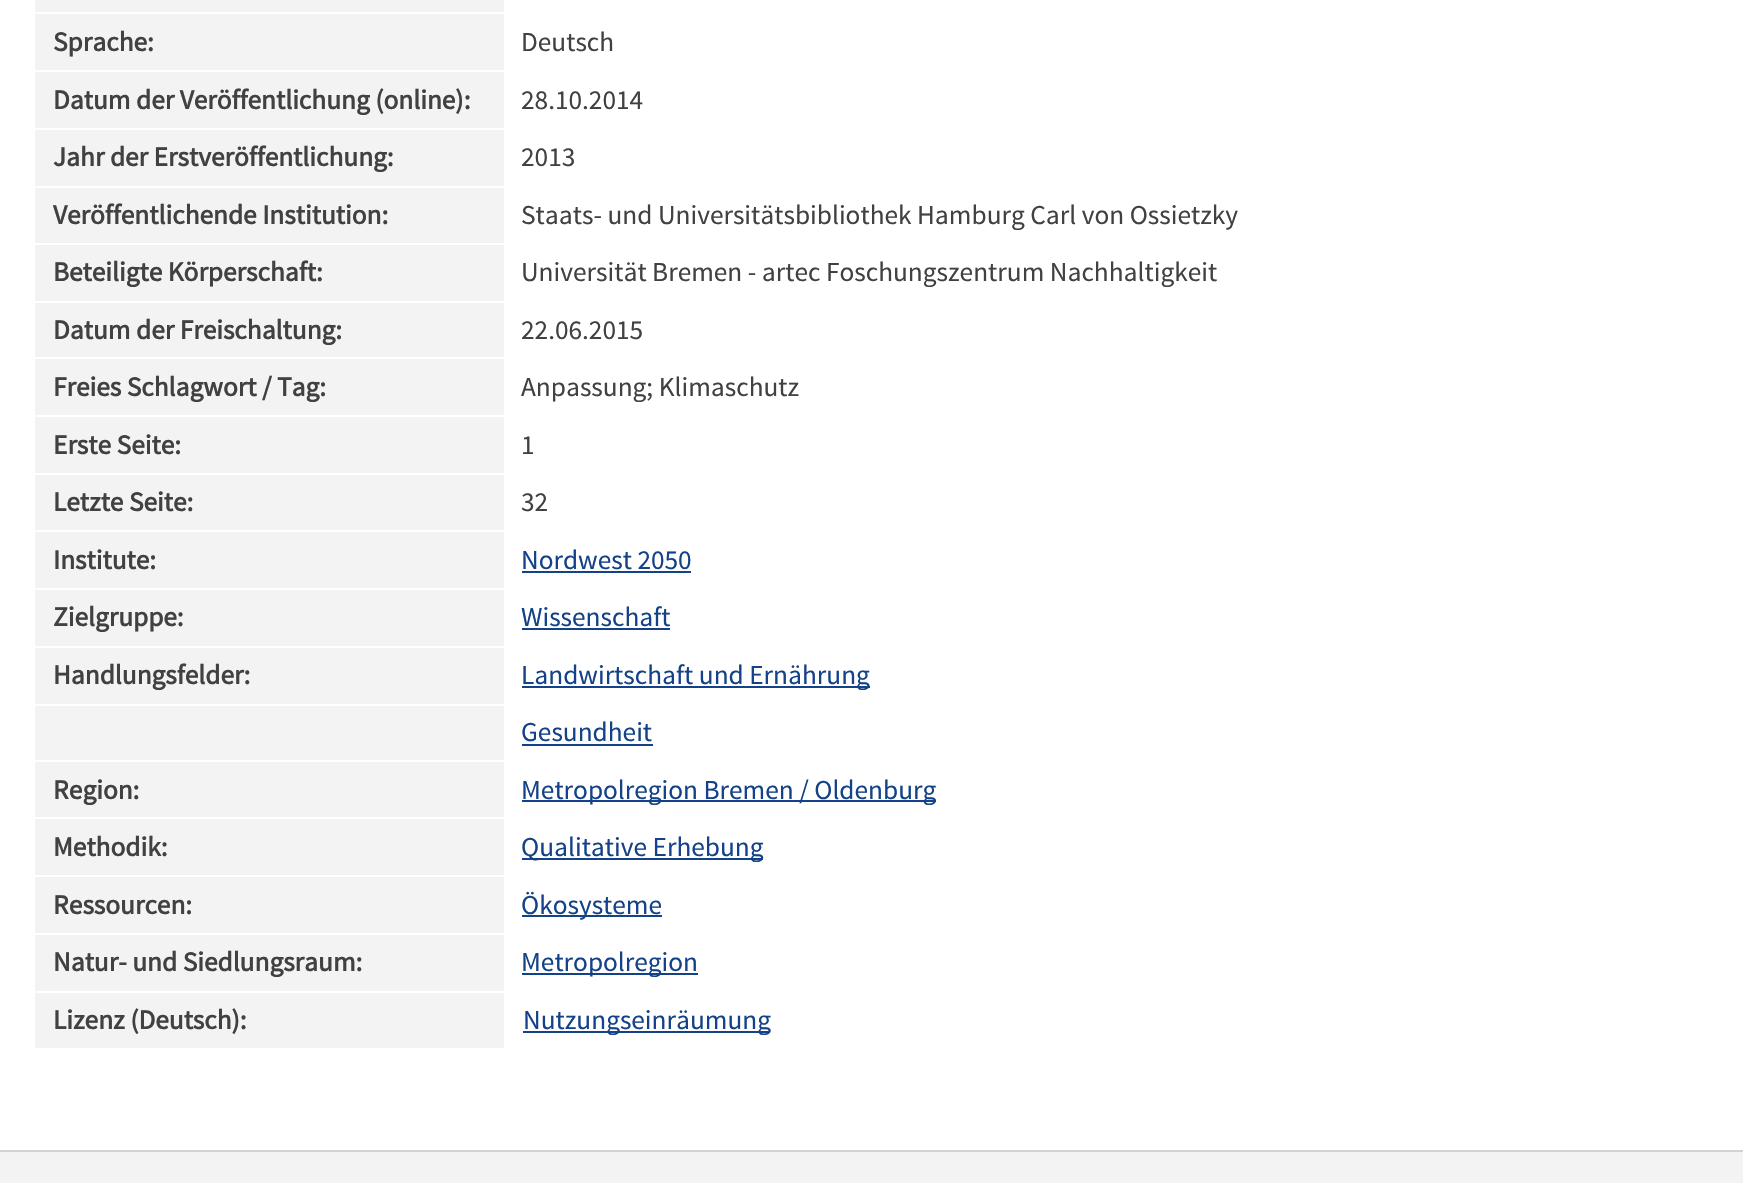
#include "include/core/SkBlurTypes.h"
#include "include/core/SkCanvas.h"
#include "include/core/SkData.h"
#include "include/core/SkFont.h"
#include "include/core/SkFontMgr.h"
#include "include/core/SkImage.h"
#include "include/core/SkMaskFilter.h"
#include "include/core/SkPaint.h"
#include "include/core/SkPathBuilder.h"
#include "include/core/SkTextBlob.h"
#include "include/effects/SkDashPathEffect.h"
#include "include/effects/SkGradientShader.h"
#include "include/utils/SkParsePath.h"

extern sk_sp<SkFontMgr> fontMgr;

void draw(SkCanvas* canvas) {
    SkPaint p;
    p.setAntiAlias(true);
    auto font = [&](const char* family, int weight, float size, bool italic = false) {
        SkFontStyle style(weight, SkFontStyle::kNormal_Width,
            italic ? SkFontStyle::kItalic_Slant : SkFontStyle::kUpright_Slant);
        SkFont result(fontMgr->matchFamilyStyle(family, style), size);
        result.setSubpixel(true);
        return result;
    };
    canvas->clear(0xFFFFFFFF);
    p.setColor(0xFFF3F3F3);
    canvas->drawRect(SkRect::MakeLTRB(35, 0, 504, 12), p);
    canvas->drawRect(SkRect::MakeLTRB(35, 14, 504, 70), p);
    auto font1 = font("Source Sans Pro", 700, 27.3f);
    p.setColor(0xFF414042);
    canvas->drawString("Sprache:", 53, 51, font1, p);
    auto font2 = font("Source Sans Pro", 400, 27.3f);
    canvas->drawString("Deutsch", 521, 51, font2, p);
    p.setColor(0xFFF3F3F3);
    canvas->drawRect(SkRect::MakeLTRB(35, 72, 504, 128), p);
    p.setColor(0xFF414042);
    canvas->drawString("Datum der Veröffentlichung (online):", 53, 109, font1, p);
    canvas->drawString("28.10.2014", 521, 109, font2, p);
    p.setColor(0xFFF3F3F3);
    canvas->drawRect(SkRect::MakeLTRB(35, 130, 504, 186), p);
    p.setColor(0xFF414042);
    canvas->drawString("Jahr der Erstveröffentlichung:", 53, 166, font1, p);
    canvas->drawString("2013", 521, 166, font2, p);
    p.setColor(0xFFF3F3F3);
    canvas->drawRect(SkRect::MakeLTRB(35, 188, 504, 243), p);
    p.setColor(0xFF414042);
    canvas->drawString("Veröffentlichende Institution:", 53, 224, font1, p);
    canvas->drawString("Staats- und Universitätsbibliothek Hamburg Carl von Ossietzky", 521, 224, font2, p);
    p.setColor(0xFFF3F3F3);
    canvas->drawRect(SkRect::MakeLTRB(35, 245, 504, 301), p);
    p.setColor(0xFF414042);
    canvas->drawString("Beteiligte Körperschaft:", 53, 281, font1, p);
    canvas->drawString("Universität Bremen - artec Foschungszentrum Nachhaltigkeit", 521, 281, font2, p);
    p.setColor(0xFFF3F3F3);
    canvas->drawRect(SkRect::MakeLTRB(35, 303, 504, 357), p);
    p.setColor(0xFF414042);
    canvas->drawString("Datum der Freischaltung:", 53, 339, font1, p);
    canvas->drawString("22.06.2015", 521, 339, font2, p);
    p.setColor(0xFFF3F3F3);
    canvas->drawRect(SkRect::MakeLTRB(35, 359, 504, 415), p);
    p.setColor(0xFF414042);
    canvas->drawString("Freies Schlagwort / Tag:", 53, 396, font1, p);
    canvas->drawString("Anpassung; Klimaschutz", 521, 396, font2, p);
    p.setColor(0xFFF3F3F3);
    canvas->drawRect(SkRect::MakeLTRB(35, 417, 504, 473), p);
    p.setColor(0xFF414042);
    canvas->drawString("Erste Seite:", 53, 454, font1, p);
    canvas->drawString("1", 521, 454, font2, p);
    p.setColor(0xFFF3F3F3);
    canvas->drawRect(SkRect::MakeLTRB(35, 475, 504, 530), p);
    p.setColor(0xFF414042);
    canvas->drawString("Letzte Seite:", 53, 511, font1, p);
    canvas->drawString("32", 521, 511, font2, p);
    p.setColor(0xFFF3F3F3);
    canvas->drawRect(SkRect::MakeLTRB(35, 532, 504, 588), p);
    p.setColor(0xFF414042);
    canvas->drawString("Institute:", 53, 569, font1, p);
    p.setColor(0xFF144288);
    canvas->drawString("Nordwest 2050", 521, 569, font2, p);
    canvas->drawRect(SkRect::MakeLTRB(522, 571, 691, 573), p);
    p.setColor(0xFFF3F3F3);
    canvas->drawRect(SkRect::MakeLTRB(35, 590, 504, 646), p);
    p.setColor(0xFF414042);
    canvas->drawString("Zielgruppe:", 53, 626, font1, p);
    p.setColor(0xFF144288);
    canvas->drawString("Wissenschaft", 521, 626, font2, p);
    canvas->drawRect(SkRect::MakeLTRB(522, 628, 670, 630), p);
    p.setColor(0xFFF3F3F3);
    canvas->drawRect(SkRect::MakeLTRB(35, 648, 504, 704), p);
    p.setColor(0xFF414042);
    canvas->drawString("Handlungsfelder:", 53, 684, font1, p);
    p.setColor(0xFF144288);
    canvas->drawRect(SkRect::MakeLTRB(522, 686, 870, 688), p);
    canvas->drawString("Landwirtschaft und Ernährung", 521, 684, font2, p);
    p.setColor(0xFFF3F3F3);
    canvas->drawRect(SkRect::MakeLTRB(35, 706, 504, 760), p);
    p.setColor(0xFF144288);
    canvas->drawString("Gesundheit", 521, 741, font2, p);
    canvas->drawRect(SkRect::MakeLTRB(522, 744, 653, 746), p);
    p.setColor(0xFFF3F3F3);
    canvas->drawRect(SkRect::MakeLTRB(35, 762, 504, 817), p);
    p.setColor(0xFF414042);
    canvas->drawString("Region:", 53, 799, font1, p);
    p.setColor(0xFF144288);
    canvas->drawRect(SkRect::MakeLTRB(522, 800, 936, 802), p);
    canvas->drawString("Metropolregion Bremen / Oldenburg", 521, 799, font2, p);
    p.setColor(0xFFF3F3F3);
    canvas->drawRect(SkRect::MakeLTRB(35, 819, 504, 875), p);
    p.setColor(0xFF414042);
    canvas->drawString("Methodik:", 53, 856, font1, p);
    p.setColor(0xFF144288);
    canvas->drawRect(SkRect::MakeLTRB(522, 858, 763, 860), p);
    canvas->drawString("Qualitative Erhebung", 521, 856, font2, p);
    p.setColor(0xFFF3F3F3);
    canvas->drawRect(SkRect::MakeLTRB(35, 877, 504, 933), p);
    p.setColor(0xFF414042);
    canvas->drawString("Ressourcen:", 53, 914, font1, p);
    p.setColor(0xFF144288);
    canvas->drawRect(SkRect::MakeLTRB(522, 915, 662, 917), p);
    canvas->drawString("Ökosysteme", 521, 914, font2, p);
    p.setColor(0xFFF3F3F3);
    canvas->drawRect(SkRect::MakeLTRB(35, 935, 504, 991), p);
    p.setColor(0xFF414042);
    canvas->drawString("Natur- und Siedlungsraum:", 53, 971, font1, p);
    p.setColor(0xFF144288);
    canvas->drawRect(SkRect::MakeLTRB(522, 973, 698, 975), p);
    canvas->drawString("Metropolregion", 521, 971, font2, p);
    p.setColor(0xFFF3F3F3);
    canvas->drawRect(SkRect::MakeLTRB(35, 993, 504, 1048), p);
    p.setColor(0xFF414042);
    canvas->drawString("Lizenz (Deutsch):", 53, 1029, font1, p);
    p.setColor(0xFF144288);
    canvas->drawRect(SkRect::MakeLTRB(523, 1031, 770, 1033), p);
    canvas->drawString("Nutzungseinräumung", 523, 1029, font2, p);
    p.setColor(0xFFF3F3F3);
    canvas->drawRect(SkRect::MakeLTRB(0, 1152, 1743, 1183), p);
    p.setColor(0xFFD2D3D4);
    canvas->drawRect(SkRect::MakeLTRB(0, 1150, 1743, 1152), p);
}
